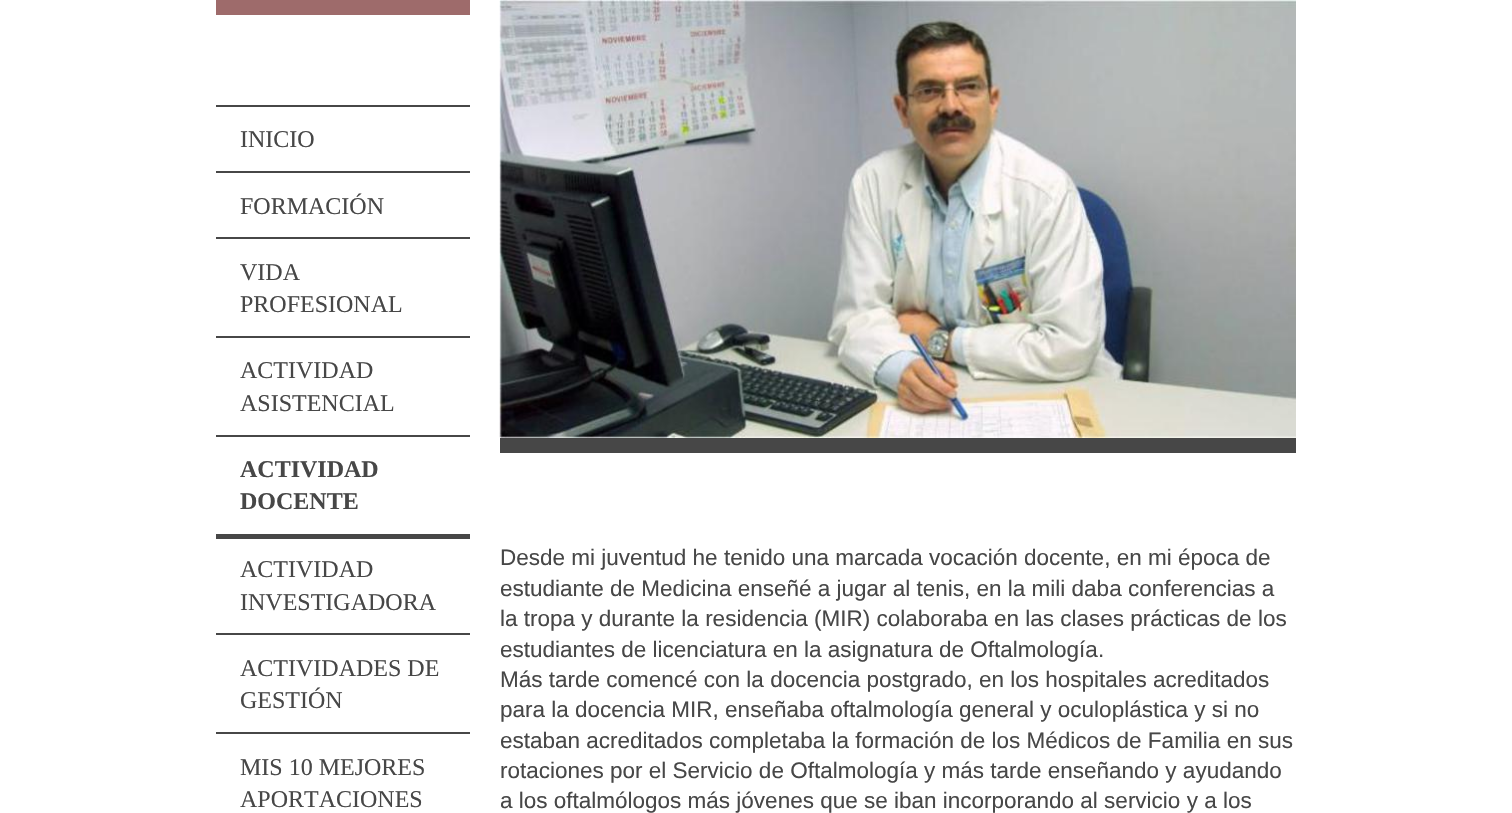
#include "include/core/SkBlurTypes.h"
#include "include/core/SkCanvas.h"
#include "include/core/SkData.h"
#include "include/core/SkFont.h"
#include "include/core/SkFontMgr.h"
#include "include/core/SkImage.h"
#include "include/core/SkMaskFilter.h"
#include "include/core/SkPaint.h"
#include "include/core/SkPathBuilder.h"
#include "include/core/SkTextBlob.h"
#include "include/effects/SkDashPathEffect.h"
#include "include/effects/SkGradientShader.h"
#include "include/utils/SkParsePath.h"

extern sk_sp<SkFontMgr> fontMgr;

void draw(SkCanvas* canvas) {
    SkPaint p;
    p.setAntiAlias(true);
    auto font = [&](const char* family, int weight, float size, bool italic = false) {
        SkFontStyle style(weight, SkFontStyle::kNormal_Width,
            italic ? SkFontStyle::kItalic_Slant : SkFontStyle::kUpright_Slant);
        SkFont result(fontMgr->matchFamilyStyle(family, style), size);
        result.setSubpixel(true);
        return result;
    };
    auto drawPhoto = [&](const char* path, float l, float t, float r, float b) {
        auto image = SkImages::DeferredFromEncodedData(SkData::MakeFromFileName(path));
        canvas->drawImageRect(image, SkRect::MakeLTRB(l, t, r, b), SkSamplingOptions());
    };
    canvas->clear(0xFFFFFFFF);
    {
        const struct { float l, t, r, b; SkColor color; } items[] = {
            {216, 0, 470, 15, 0xFF9E6B6B},
            {216, 105, 470, 107, 0xFF474747},
            {216, 171, 470, 173, 0xFF474747},
        };
        for (auto [l, t, r, b, color] : items) {
            p.setColor(color);
            canvas->drawRect(SkRect::MakeLTRB(l, t, r, b), p);
        }
    }
    auto font1 = font("Liberation Serif", 400, 24);
    canvas->drawString("INICIO", 240, 147, font1, p);
    canvas->drawRect(SkRect::MakeLTRB(216, 237, 470, 239), p);
    canvas->drawString("FORMACIÓN", 240, 214, font1, p);
    canvas->drawRect(SkRect::MakeLTRB(216, 336, 470, 338), p);
    canvas->drawString("VIDA", 240, 280, font1, p);
    canvas->drawString("PROFESIONAL", 240, 312, font1, p);
    canvas->drawRect(SkRect::MakeLTRB(216, 435, 470, 437), p);
    canvas->drawString("ACTIVIDAD", 240, 378, font1, p);
    canvas->drawString("ASISTENCIAL", 240, 411, font1, p);
    canvas->drawRect(SkRect::MakeLTRB(216, 534, 470, 539), p);
    auto font2 = font("Liberation Serif", 700, 24);
    canvas->drawString("ACTIVIDAD", 240, 477, font2, p);
    canvas->drawString("DOCENTE", 240, 509, font2, p);
    canvas->drawRect(SkRect::MakeLTRB(216, 633, 470, 635), p);
    canvas->drawString("ACTIVIDAD", 240, 577, font1, p);
    canvas->drawString("INVESTIGADORA", 240, 610, font1, p);
    canvas->drawRect(SkRect::MakeLTRB(216, 732, 470, 734), p);
    {
        const struct { const char* s; float x, y; } items[] = {
            {"ACTIVIDADES DE", 240, 676},
            {"GESTIÓN", 240, 708},
            {"MIS 10 MEJORES", 240, 775},
            {"APORTACIONES", 240, 807},
        };
        for (auto [s, x, y] : items) {
            canvas->drawString(s, x, y, font1, p);
        }
    }
    canvas->drawRect(SkRect::MakeLTRB(500, 438, 1296, 453), p);
    drawPhoto("media/1.png", 499, 0, 1296, 438);
    auto font3 = font("Liberation Sans", 400, 22.5f);
    {
        const struct { const char* s; float x, y; } items[] = {
            {"Desde mi juventud he tenido una marcada vocación docente, en mi época de", 500, 565},
            {"estudiante de Medicina enseñé a jugar al tenis, en la mili daba conferencias a", 500, 596},
            {"la tropa y durante la residencia (MIR) colaboraba en las clases prácticas de los", 500, 626},
            {"estudiantes de licenciatura en la asignatura de Oftalmología.", 500, 657},
            {"Más tarde comencé con la docencia postgrado, en los hospitales acreditados", 500, 687},
            {"para la docencia MIR, enseñaba oftalmología general y oculoplástica y si no", 500, 717},
            {"estaban acreditados completaba la formación de los Médicos de Familia en sus", 500, 748},
            {"rotaciones por el Servicio de Oftalmología y más tarde enseñando y ayudando", 500, 778},
            {"a los oftalmólogos más jóvenes que se iban incorporando al servicio y a los", 500, 808},
        };
        for (auto [s, x, y] : items) {
            canvas->drawString(s, x, y, font3, p);
        }
    }
}
